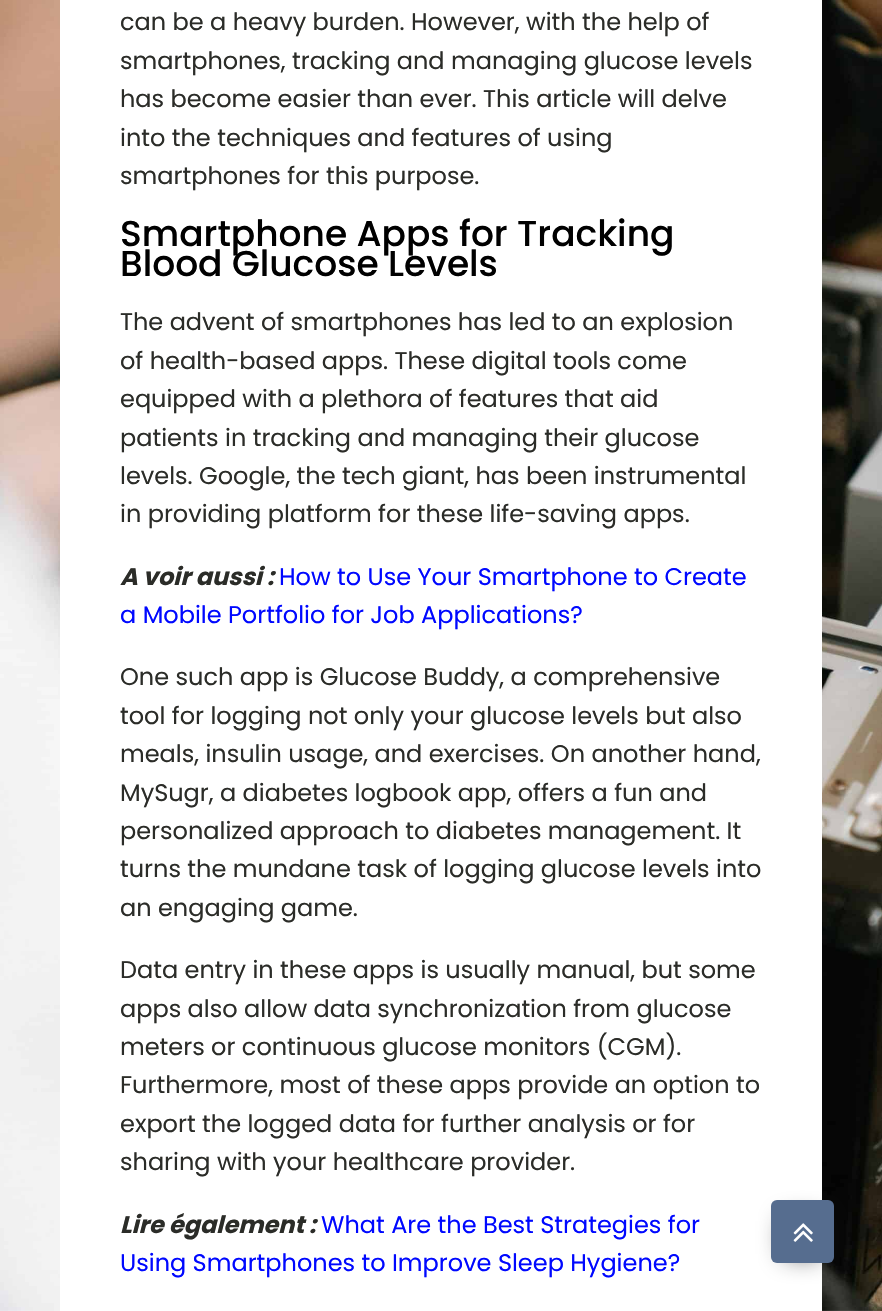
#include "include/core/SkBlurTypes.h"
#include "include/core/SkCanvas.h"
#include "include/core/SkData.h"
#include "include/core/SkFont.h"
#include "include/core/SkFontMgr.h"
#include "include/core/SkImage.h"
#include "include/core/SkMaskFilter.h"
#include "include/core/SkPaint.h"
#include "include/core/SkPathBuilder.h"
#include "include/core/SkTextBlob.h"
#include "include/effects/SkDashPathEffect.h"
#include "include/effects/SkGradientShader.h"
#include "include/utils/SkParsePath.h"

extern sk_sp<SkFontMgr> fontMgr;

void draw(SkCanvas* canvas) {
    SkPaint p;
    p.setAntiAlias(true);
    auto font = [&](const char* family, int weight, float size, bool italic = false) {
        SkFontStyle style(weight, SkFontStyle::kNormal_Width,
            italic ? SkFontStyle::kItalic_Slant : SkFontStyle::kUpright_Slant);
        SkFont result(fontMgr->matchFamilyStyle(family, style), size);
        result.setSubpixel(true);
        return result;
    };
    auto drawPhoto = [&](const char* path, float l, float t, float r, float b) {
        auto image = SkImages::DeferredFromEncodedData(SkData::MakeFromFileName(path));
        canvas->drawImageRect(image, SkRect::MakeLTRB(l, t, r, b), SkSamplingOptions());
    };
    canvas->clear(0xFFFFFFFF);
    drawPhoto("media/1.png", 0, 0, 882, 1311);
    p.setColor(0xFFFFFFFF);
    canvas->drawRect(SkRect::MakeLTRB(60, 0, 822, 1311), p);
    auto font1 = font("Poppins", 400, 24);
    p.setColor(0xFF2B2C28);
    {
        const struct { const char* s; float x, y; } items[] = {
            {"can be a heavy burden. However, with the help of", 120, 30},
            {"smartphones, tracking and managing glucose levels", 120, 69},
            {"has become easier than ever. This article will delve", 120, 107},
            {"into the techniques and features of using", 120, 146},
            {"smartphones for this purpose.", 120, 184},
        };
        for (auto [s, x, y] : items) {
            canvas->drawString(s, x, y, font1, p);
        }
    }
    auto font2 = font("Poppins", 500, 36);
    p.setColor(0xFF000000);
    canvas->drawString("Smartphone Apps for Tracking", 120, 246, font2, p);
    canvas->drawString("Blood Glucose Levels", 120, 276, font2, p);
    p.setColor(0xFF2B2C28);
    {
        const struct { const char* s; float x, y; } items[] = {
            {"The advent of smartphones has led to an explosion", 120, 330},
            {"of health-based apps. These digital tools come", 120, 369},
            {"equipped with a plethora of features that aid", 120, 407},
            {"patients in tracking and managing their glucose", 120, 446},
            {"levels. Google, the tech giant, has been instrumental", 120, 484},
            {"in providing platform for these life-saving apps.", 120, 522},
        };
        for (auto [s, x, y] : items) {
            canvas->drawString(s, x, y, font1, p);
        }
    }
    auto font3 = font("Poppins", 700, 24, true);
    canvas->drawString("A voir aussi :", 120, 585, font3, p);
    p.setColor(0xFF0008FF);
    canvas->drawString("How to Use Your Smartphone to Create", 279, 585, font1, p);
    canvas->drawString("a Mobile Portfolio for Job Applications?", 120, 623, font1, p);
    p.setColor(0xFF2B2C28);
    {
        const struct { const char* s; float x, y; } items[] = {
            {"One such app is Glucose Buddy, a comprehensive", 120, 685},
            {"tool for logging not only your glucose levels but also", 120, 724},
            {"meals, insulin usage, and exercises. On another hand,", 120, 762},
            {"MySugr, a diabetes logbook app, offers a fun and", 120, 801},
            {"personalized approach to diabetes management. It", 120, 839},
            {"turns the mundane task of logging glucose levels into", 120, 877},
            {"an engaging game.", 120, 916},
            {"Data entry in these apps is usually manual, but some", 120, 978},
            {"apps also allow data synchronization from glucose", 120, 1017},
            {"meters or continuous glucose monitors (CGM).", 120, 1055},
            {"Furthermore, most of these apps provide an option to", 120, 1093},
            {"export the logged data for further analysis or for", 120, 1132},
            {"sharing with your healthcare provider.", 120, 1170},
        };
        for (auto [s, x, y] : items) {
            canvas->drawString(s, x, y, font1, p);
        }
    }
    canvas->drawString("Lire également :", 120, 1233, font3, p);
    p.setColor(0xFF0008FF);
    canvas->drawString("What Are the Best Strategies for", 321, 1233, font1, p);
    canvas->drawString("Using Smartphones to Improve Sleep Hygiene?", 120, 1271, font1, p);
    p.setColor(0xFF1E1E1E);
    p.setMaskFilter(SkMaskFilter::MakeBlur(kNormal_SkBlurStyle, 13));
    canvas->drawRect(SkRect::MakeLTRB(786, 1221, 819, 1254), p);
    p.setMaskFilter(nullptr);
    p.setColor(0xFF566D8F);
    canvas->drawRoundRect(SkRect::MakeLTRB(771, 1200, 834, 1263), 6, 6, p);
    drawPhoto("media/2.png", 793, 1223, 813, 1242);
}
